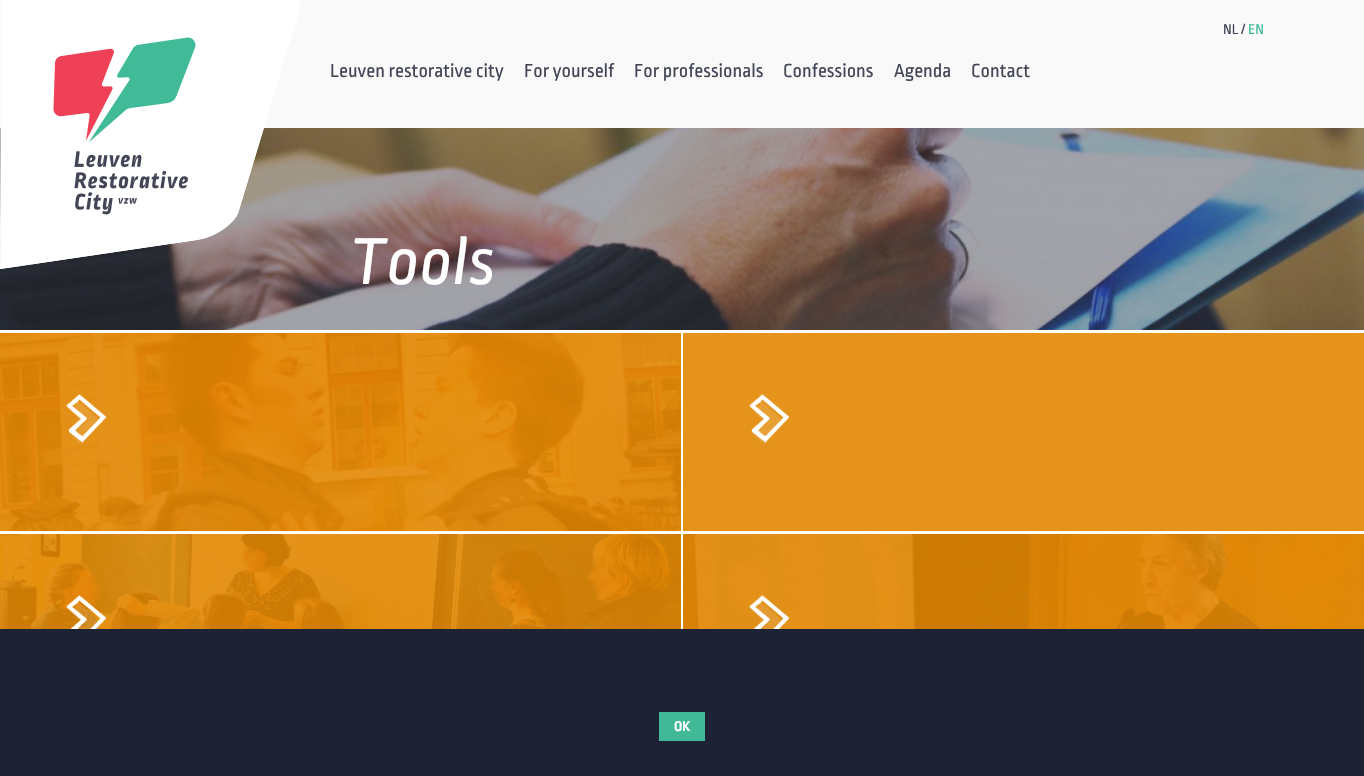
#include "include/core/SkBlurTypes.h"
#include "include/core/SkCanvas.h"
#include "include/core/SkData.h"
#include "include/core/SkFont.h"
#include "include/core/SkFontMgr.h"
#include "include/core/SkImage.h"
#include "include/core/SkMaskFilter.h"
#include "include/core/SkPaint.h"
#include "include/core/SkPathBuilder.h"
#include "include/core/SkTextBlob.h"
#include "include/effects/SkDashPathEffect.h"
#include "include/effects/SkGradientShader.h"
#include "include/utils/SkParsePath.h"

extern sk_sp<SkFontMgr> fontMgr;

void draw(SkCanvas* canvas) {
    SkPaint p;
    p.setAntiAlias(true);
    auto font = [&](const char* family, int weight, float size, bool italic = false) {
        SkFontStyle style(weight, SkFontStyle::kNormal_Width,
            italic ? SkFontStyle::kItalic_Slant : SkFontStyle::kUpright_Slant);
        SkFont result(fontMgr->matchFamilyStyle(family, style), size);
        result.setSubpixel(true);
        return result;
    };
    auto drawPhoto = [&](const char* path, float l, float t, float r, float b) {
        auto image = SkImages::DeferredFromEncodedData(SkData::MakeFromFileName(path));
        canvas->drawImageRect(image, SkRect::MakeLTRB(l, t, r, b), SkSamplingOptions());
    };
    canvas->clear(0xFFFFFFFF);
    drawPhoto("media/1.png", 0, 128, 1364, 330);
    p.setColor(0xFFF9F9F9);
    canvas->drawRect(SkRect::MakeLTRB(0, 0, 1364, 128), p);
    drawPhoto("media/3.png", 0, 128, 264, 269);
    drawPhoto("media/2.png", 0, 0, 300, 269);
    auto font1 = font("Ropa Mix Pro", 400, 15);
    p.setColor(0xFF434656);
    canvas->drawString("NL /", 1223, 34, font1, p);
    p.setColor(0xFF41B996);
    canvas->drawString("EN", 1248, 34, font1, p);
    auto font2 = font("Ropa Mix Pro", 400, 20);
    p.setColor(0xFF434656);
    {
        const struct { const char* s; float x, y; } items[] = {
            {"Leuven restorative city", 330, 77},
            {"For yourself", 524, 77},
            {"For professionals", 634, 77},
            {"Confessions", 783, 77},
            {"Agenda", 894, 77},
            {"Contact", 971, 77},
        };
        for (auto [s, x, y] : items) {
            canvas->drawString(s, x, y, font2, p);
        }
    }
    auto font3 = font("Ropa Mix Pro", 400, 70, true);
    p.setColor(0xFFFFFFFF);
    canvas->drawString("Tools", 350, 284, font3, p);
    drawPhoto("media/4.png", 0, 333, 681, 531);
    drawPhoto("media/5.png", 66, 394, 107, 445);
    p.setColor(0xFFE5931B);
    canvas->drawRect(SkRect::MakeLTRB(683, 333, 1364, 531), p);
    drawPhoto("media/6.png", 749, 394, 790, 445);
    drawPhoto("media/7.png", 0, 534, 681, 629);
    drawPhoto("media/8.png", 66, 595, 107, 629);
    drawPhoto("media/9.png", 683, 534, 1364, 629);
    drawPhoto("media/10.png", 749, 595, 790, 629);
    p.setColor(0xFF1E2235);
    canvas->drawRect(SkRect::MakeLTRB(0, 629, 1364, 776), p);
    p.setColor(0xFF41B996);
    canvas->drawRect(SkRect::MakeLTRB(659, 712, 705, 741), p);
    auto font4 = font("Ropa Mix Pro", 700, 15);
    p.setColor(0xFFFFFFFF);
    canvas->drawString("OK", 674, 731, font4, p);
}
